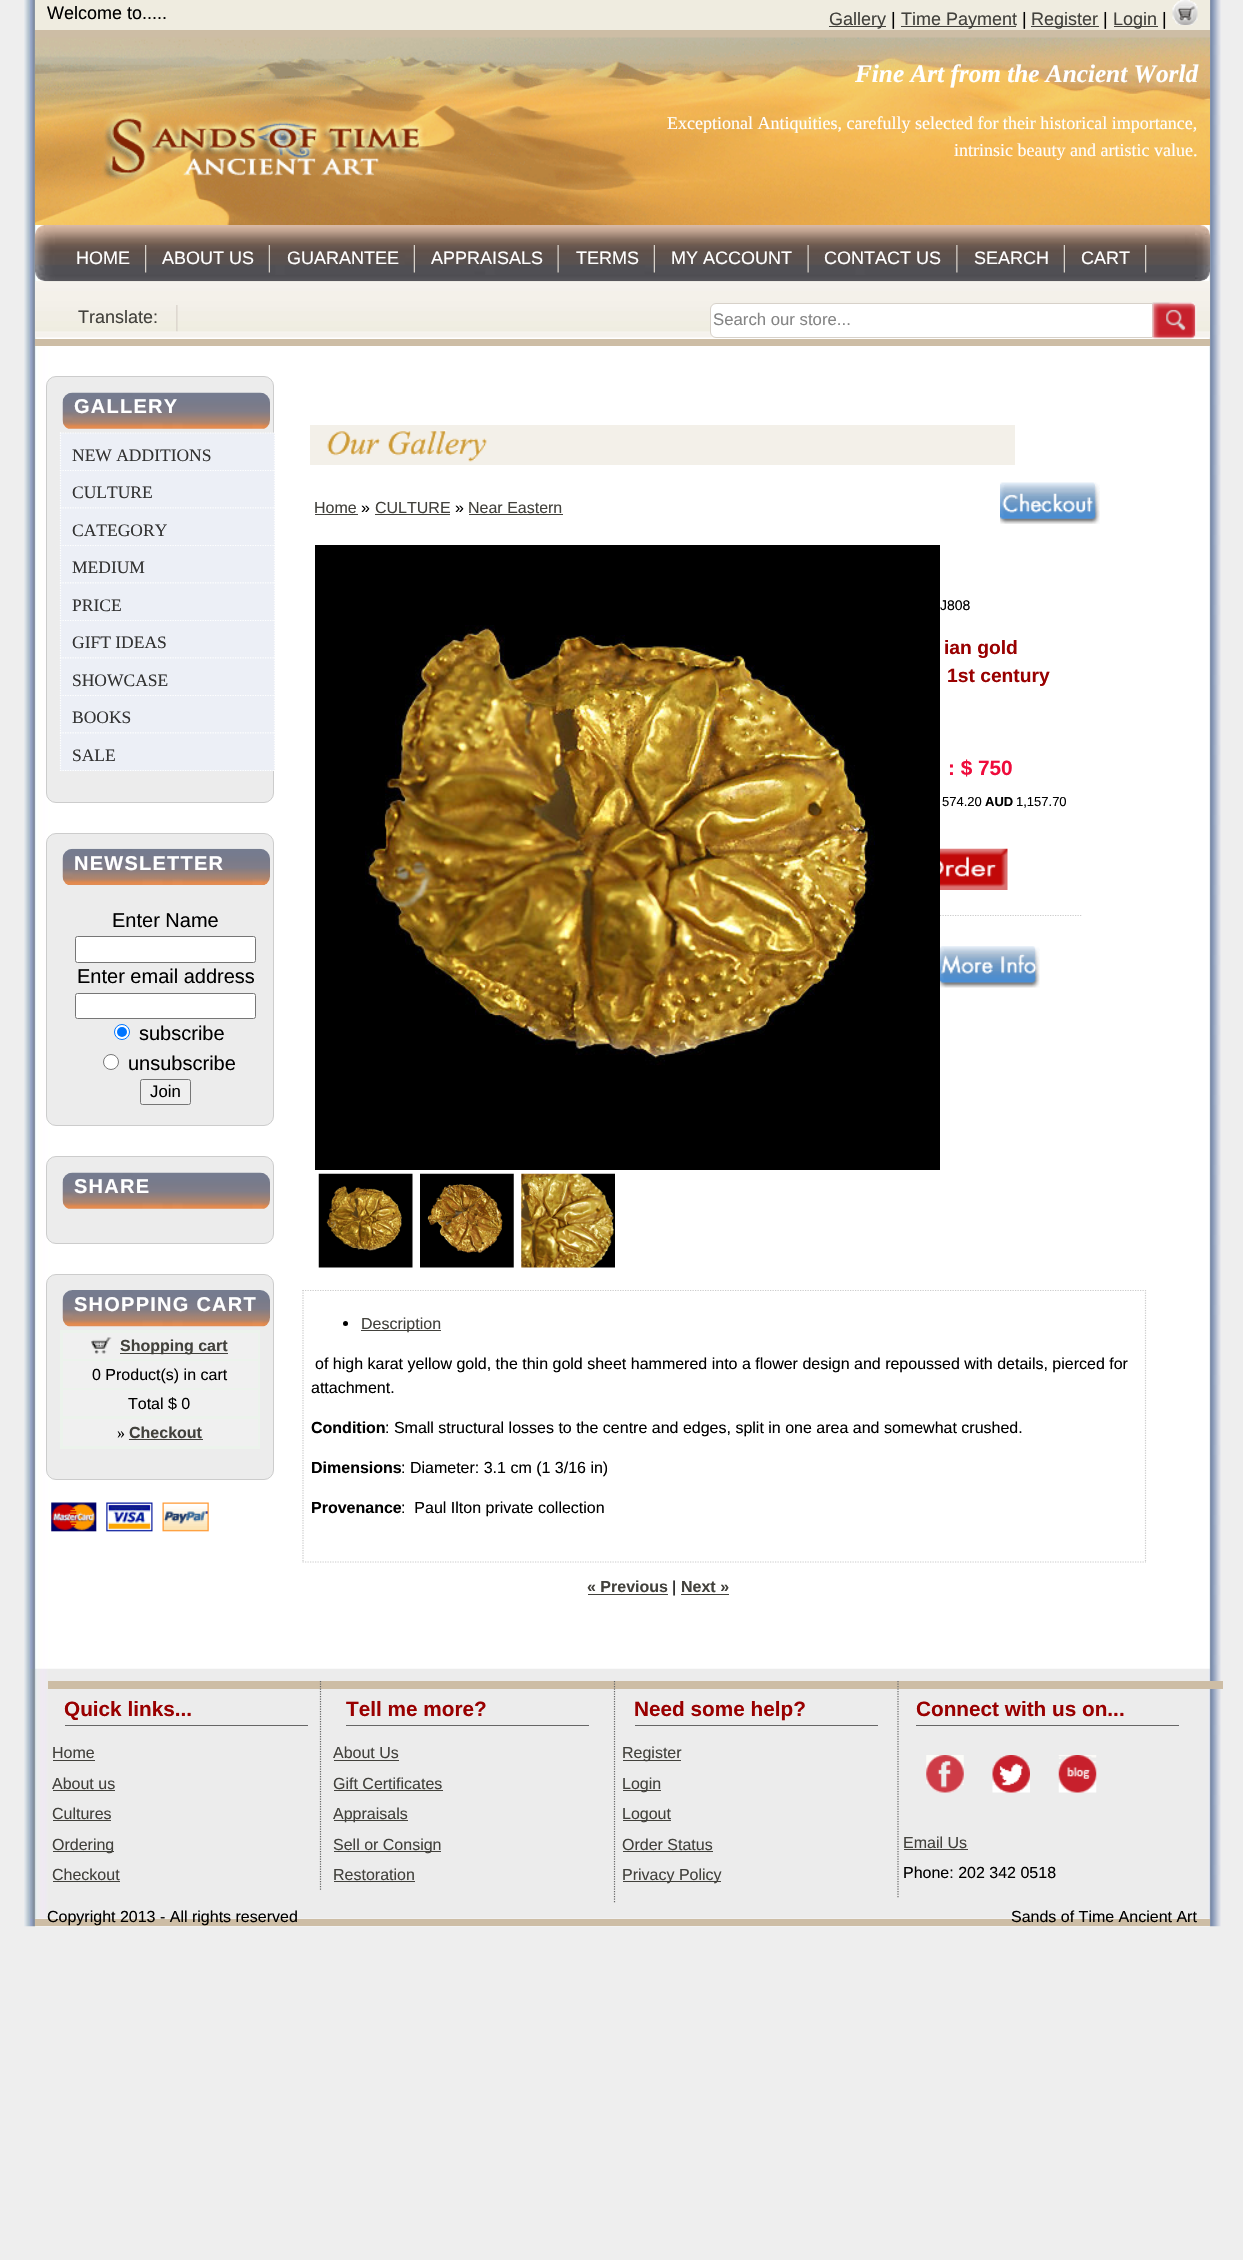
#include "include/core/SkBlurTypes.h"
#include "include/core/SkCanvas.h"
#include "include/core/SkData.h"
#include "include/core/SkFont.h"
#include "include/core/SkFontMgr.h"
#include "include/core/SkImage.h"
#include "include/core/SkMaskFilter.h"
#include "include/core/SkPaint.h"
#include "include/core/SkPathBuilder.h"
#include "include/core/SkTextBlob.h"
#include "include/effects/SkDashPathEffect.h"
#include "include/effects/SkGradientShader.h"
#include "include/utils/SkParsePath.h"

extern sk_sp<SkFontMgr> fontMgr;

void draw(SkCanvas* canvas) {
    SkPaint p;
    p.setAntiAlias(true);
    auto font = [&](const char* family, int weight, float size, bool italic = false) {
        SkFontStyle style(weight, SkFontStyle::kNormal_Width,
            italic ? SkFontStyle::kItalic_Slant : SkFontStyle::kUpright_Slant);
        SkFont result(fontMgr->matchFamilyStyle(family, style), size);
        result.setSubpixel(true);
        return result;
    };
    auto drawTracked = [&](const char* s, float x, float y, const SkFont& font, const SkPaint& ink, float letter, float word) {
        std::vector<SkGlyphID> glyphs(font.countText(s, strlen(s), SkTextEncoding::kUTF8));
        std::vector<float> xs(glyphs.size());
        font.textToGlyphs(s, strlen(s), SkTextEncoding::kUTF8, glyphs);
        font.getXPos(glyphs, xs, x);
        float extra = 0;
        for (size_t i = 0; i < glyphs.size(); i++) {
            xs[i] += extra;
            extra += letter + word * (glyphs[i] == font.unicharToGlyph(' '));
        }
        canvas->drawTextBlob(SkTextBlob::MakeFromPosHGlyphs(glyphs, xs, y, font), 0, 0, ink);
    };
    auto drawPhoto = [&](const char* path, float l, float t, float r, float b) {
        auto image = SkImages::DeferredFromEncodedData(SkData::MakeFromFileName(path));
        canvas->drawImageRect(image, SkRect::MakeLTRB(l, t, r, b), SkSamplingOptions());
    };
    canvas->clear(0xFFEEEEEE);
    drawPhoto("media/1.png", 24, 0, 1221, 1927);
    p.setColor(0xFFEFECE0);
    canvas->drawRect(SkRect::MakeLTRB(35, 0, 1210, 30), p);
    auto font1 = font("Liberation Sans", 400, 18);
    p.setColor(0xFF000000);
    canvas->drawString("Welcome to.....", 47, 19, font1, p);
    p.setColor(0xFF42413C);
    canvas->drawRect(SkRect::MakeLTRB(829, 26, 886, 27), p);
    canvas->drawString("Gallery", 829, 25, font1, p);
    p.setColor(0xFF000000);
    canvas->drawString("|", 891, 25, font1, p);
    p.setColor(0xFF42413C);
    canvas->drawRect(SkRect::MakeLTRB(901, 26, 1016, 27), p);
    canvas->drawString("Time Payment", 901, 25, font1, p);
    p.setColor(0xFF000000);
    canvas->drawString("|", 1022, 25, font1, p);
    p.setColor(0xFF42413C);
    canvas->drawRect(SkRect::MakeLTRB(1031, 26, 1099, 27), p);
    canvas->drawString("Register", 1031, 25, font1, p);
    p.setColor(0xFF000000);
    canvas->drawString("|", 1103, 25, font1, p);
    p.setColor(0xFF42413C);
    canvas->drawRect(SkRect::MakeLTRB(1114, 26, 1158, 27), p);
    canvas->drawString("Login", 1113, 25, font1, p);
    p.setColor(0xFF000000);
    canvas->drawString("|", 1162, 25, font1, p);
    drawPhoto("media/2.png", 1172, 0, 1198, 25);
    p.setColor(0xFFCDBDA5);
    canvas->drawRect(SkRect::MakeLTRB(35, 30, 1210, 38), p);
    drawPhoto("media/3.png", 35, 37, 1210, 225);
    auto font2 = font("Liberation Serif", 700, 25.25f, true);
    p.setColor(0xFFFFFFFF);
    canvas->drawString("Fine Art from the Ancient World", 855, 82, font2, p);
    auto font3 = font("Liberation Serif", 400, 18);
    canvas->drawString("Exceptional Antiquities, carefully selected for their historical importance,", 667, 129, font3, p);
    canvas->drawString("intrinsic beauty and artistic value.", 954, 156, font3, p);
    drawPhoto("media/4.png", 35, 225, 1210, 282);
    drawPhoto("media/5.png", 145, 245, 147, 273);
    canvas->drawString("HOME", 76, 264, font1, p);
    drawPhoto("media/6.png", 268, 245, 270, 273);
    canvas->drawString("ABOUT US", 162, 264, font1, p);
    drawPhoto("media/7.png", 413, 245, 415, 273);
    canvas->drawString("GUARANTEE", 287, 264, font1, p);
    drawPhoto("media/8.png", 557, 245, 559, 273);
    canvas->drawString("APPRAISALS", 431, 264, font1, p);
    drawPhoto("media/9.png", 653, 245, 655, 273);
    canvas->drawString("TERMS", 576, 264, font1, p);
    drawPhoto("media/8.png", 807, 245, 809, 273);
    canvas->drawString("MY ACCOUNT", 671, 264, font1, p);
    drawPhoto("media/10.png", 956, 245, 958, 273);
    canvas->drawString("CONTACT US", 824, 264, font1, p);
    drawPhoto("media/6.png", 1063, 245, 1065, 273);
    canvas->drawString("SEARCH", 974, 264, font1, p);
    drawPhoto("media/5.png", 1145, 245, 1147, 273);
    canvas->drawString("CART", 1081, 264, font1, p);
    drawPhoto("media/11.png", 35, 281, 1210, 338);
    drawPhoto("media/12.png", 176, 305, 178, 332);
    p.setColor(0xFF42413C);
    canvas->drawString("Translate:", 78, 323, font1, p);
    p.setColor(0xFFFFFFFF);
    canvas->drawPath(SkPathBuilder().moveTo(716, 303.5f).lineTo(1152.5f, 303.5f).lineTo(1152.5f, 337.5f).lineTo(716, 337.5f).cubicTo(713, 337.5f, 710.5f, 335, 710.5f, 332).lineTo(710.5f, 309).cubicTo(710.5f, 306, 713, 303.5f, 716, 303.5f).close().detach(), p);
    p.setStyle(SkPaint::kStroke_Style);
    p.setStrokeWidth(1);
    p.setColor(0xFFD7D1C9);
    canvas->drawPath(SkPathBuilder().moveTo(716, 303.5f).lineTo(1152.5f, 303.5f).lineTo(1152.5f, 337.5f).lineTo(716, 337.5f).cubicTo(713, 337.5f, 710.5f, 335, 710.5f, 332).lineTo(710.5f, 309).cubicTo(710.5f, 306, 713, 303.5f, 716, 303.5f).close().detach(), p);
    auto font4 = font("Liberation Sans", 400, 16.75f);
    p.setStyle(SkPaint::kFill_Style);
    p.setColor(0xFF858585);
    canvas->drawString("Search our store...", 713, 325, font4, p);
    drawPhoto("media/13.png", 1152, 302, 1197, 339);
    p.setColor(0xFFCDBDA5);
    canvas->drawRect(SkRect::MakeLTRB(35, 339, 1210, 346), p);
    p.setColor(0xFFECECEC);
    canvas->drawRoundRect(SkRect::MakeLTRB(46.5f, 376.5f, 273.5f, 802.5f), 9.5f, 9.5f, p);
    p.setStyle(SkPaint::kStroke_Style);
    p.setColor(0xFFCCCCCC);
    canvas->drawRoundRect(SkRect::MakeLTRB(46.5f, 376.5f, 273.5f, 802.5f), 9.5f, 9.5f, p);
    drawPhoto("media/14.png", 62, 392, 270, 429);
    auto font5 = font("Liberation Sans", 700, 20);
    p.setStyle(SkPaint::kFill_Style);
    p.setColor(0xFFFFFFFF);
    drawTracked("GALLERY", 74, 413, font5, p, 1.25f, 0);
    p.setColor(0xFFECEFF6);
    canvas->drawRect(SkRect::MakeLTRB(60, 433, 275, 470), p);
    p.setStyle(SkPaint::kStroke_Style);
    p.setStrokeWidth(1.2f);
    p.setColor(0xFFFFFFFF);
    p.setPathEffect(SkDashPathEffect::Make({{1.25f, 1.25f}}, 0));
    canvas->drawPath(SkPathBuilder().moveTo(60, 433).lineTo(275, 433).detach(), p);
    p.setPathEffect(nullptr);
    p.setPathEffect(SkDashPathEffect::Make({{1.25f, 1.25f}}, 0));
    canvas->drawPath(SkPathBuilder().moveTo(274.5f, 432.5f).lineTo(274.5f, 471).detach(), p);
    p.setPathEffect(nullptr);
    p.setPathEffect(SkDashPathEffect::Make({{1.25f, 1.25f}}, 0));
    canvas->drawPath(SkPathBuilder().moveTo(60, 470.5f).lineTo(275, 470.5f).detach(), p);
    p.setPathEffect(nullptr);
    p.setPathEffect(SkDashPathEffect::Make({{1.25f, 1.25f}}, 0));
    canvas->drawPath(SkPathBuilder().moveTo(60.5f, 432.5f).lineTo(60.5f, 471).detach(), p);
    p.setPathEffect(nullptr);
    auto font6 = font("Liberation Serif", 400, 17.5f);
    p.setStyle(SkPaint::kFill_Style);
    p.setColor(0xFF333333);
    canvas->drawString("NEW ADDITIONS", 72, 461, font6, p);
    p.setColor(0xFFECEFF6);
    canvas->drawRect(SkRect::MakeLTRB(60, 470, 275, 508), p);
    p.setStyle(SkPaint::kStroke_Style);
    p.setColor(0xFFFFFFFF);
    p.setPathEffect(SkDashPathEffect::Make({{1.25f, 1.25f}}, 0));
    canvas->drawPath(SkPathBuilder().moveTo(60, 470.5f).lineTo(275, 470.5f).detach(), p);
    p.setPathEffect(nullptr);
    p.setPathEffect(SkDashPathEffect::Make({{1.25f, 1.25f}}, 0));
    canvas->drawPath(SkPathBuilder().moveTo(274.5f, 470).lineTo(274.5f, 509).detach(), p);
    p.setPathEffect(nullptr);
    p.setPathEffect(SkDashPathEffect::Make({{1.25f, 1.25f}}, 0));
    canvas->drawPath(SkPathBuilder().moveTo(60, 508).lineTo(275, 508).detach(), p);
    p.setPathEffect(nullptr);
    p.setPathEffect(SkDashPathEffect::Make({{1.25f, 1.25f}}, 0));
    canvas->drawPath(SkPathBuilder().moveTo(60.5f, 470).lineTo(60.5f, 509).detach(), p);
    p.setPathEffect(nullptr);
    p.setStyle(SkPaint::kFill_Style);
    p.setColor(0xFF333333);
    canvas->drawString("CULTURE", 72, 498, font6, p);
    p.setColor(0xFFECEFF6);
    canvas->drawRect(SkRect::MakeLTRB(60, 508, 275, 545), p);
    p.setStyle(SkPaint::kStroke_Style);
    p.setColor(0xFFFFFFFF);
    p.setPathEffect(SkDashPathEffect::Make({{1.25f, 1.25f}}, 0));
    canvas->drawPath(SkPathBuilder().moveTo(60, 508).lineTo(275, 508).detach(), p);
    p.setPathEffect(nullptr);
    p.setPathEffect(SkDashPathEffect::Make({{1.25f, 1.25f}}, 0));
    canvas->drawPath(SkPathBuilder().moveTo(274.5f, 507.5f).lineTo(274.5f, 546).detach(), p);
    p.setPathEffect(nullptr);
    p.setPathEffect(SkDashPathEffect::Make({{1.25f, 1.25f}}, 0));
    canvas->drawPath(SkPathBuilder().moveTo(60, 545.5f).lineTo(275, 545.5f).detach(), p);
    p.setPathEffect(nullptr);
    p.setPathEffect(SkDashPathEffect::Make({{1.25f, 1.25f}}, 0));
    canvas->drawPath(SkPathBuilder().moveTo(60.5f, 507.5f).lineTo(60.5f, 546).detach(), p);
    p.setPathEffect(nullptr);
    p.setStyle(SkPaint::kFill_Style);
    p.setColor(0xFF333333);
    canvas->drawString("CATEGORY", 72, 536, font6, p);
    p.setColor(0xFFECEFF6);
    canvas->drawRect(SkRect::MakeLTRB(60, 545, 275, 583), p);
    p.setStyle(SkPaint::kStroke_Style);
    p.setColor(0xFFFFFFFF);
    p.setPathEffect(SkDashPathEffect::Make({{1.25f, 1.25f}}, 0));
    canvas->drawPath(SkPathBuilder().moveTo(60, 545.5f).lineTo(275, 545.5f).detach(), p);
    p.setPathEffect(nullptr);
    p.setPathEffect(SkDashPathEffect::Make({{1.25f, 1.25f}}, 0));
    canvas->drawPath(SkPathBuilder().moveTo(274.5f, 545).lineTo(274.5f, 584).detach(), p);
    p.setPathEffect(nullptr);
    p.setPathEffect(SkDashPathEffect::Make({{1.25f, 1.25f}}, 0));
    canvas->drawPath(SkPathBuilder().moveTo(60, 583).lineTo(275, 583).detach(), p);
    p.setPathEffect(nullptr);
    p.setPathEffect(SkDashPathEffect::Make({{1.25f, 1.25f}}, 0));
    canvas->drawPath(SkPathBuilder().moveTo(60.5f, 545).lineTo(60.5f, 584).detach(), p);
    p.setPathEffect(nullptr);
    p.setStyle(SkPaint::kFill_Style);
    p.setColor(0xFF333333);
    canvas->drawString("MEDIUM", 72, 573, font6, p);
    p.setColor(0xFFECEFF6);
    canvas->drawRect(SkRect::MakeLTRB(60, 583, 275, 620), p);
    p.setStyle(SkPaint::kStroke_Style);
    p.setColor(0xFFFFFFFF);
    p.setPathEffect(SkDashPathEffect::Make({{1.25f, 1.25f}}, 0));
    canvas->drawPath(SkPathBuilder().moveTo(60, 583).lineTo(275, 583).detach(), p);
    p.setPathEffect(nullptr);
    p.setPathEffect(SkDashPathEffect::Make({{1.25f, 1.25f}}, 0));
    canvas->drawPath(SkPathBuilder().moveTo(274.5f, 582.5f).lineTo(274.5f, 621).detach(), p);
    p.setPathEffect(nullptr);
    p.setPathEffect(SkDashPathEffect::Make({{1.25f, 1.25f}}, 0));
    canvas->drawPath(SkPathBuilder().moveTo(60, 620.5f).lineTo(275, 620.5f).detach(), p);
    p.setPathEffect(nullptr);
    p.setPathEffect(SkDashPathEffect::Make({{1.25f, 1.25f}}, 0));
    canvas->drawPath(SkPathBuilder().moveTo(60.5f, 582.5f).lineTo(60.5f, 621).detach(), p);
    p.setPathEffect(nullptr);
    p.setStyle(SkPaint::kFill_Style);
    p.setColor(0xFF333333);
    canvas->drawString("PRICE", 72, 611, font6, p);
    p.setColor(0xFFECEFF6);
    canvas->drawRect(SkRect::MakeLTRB(60, 620, 275, 658), p);
    p.setStyle(SkPaint::kStroke_Style);
    p.setColor(0xFFFFFFFF);
    p.setPathEffect(SkDashPathEffect::Make({{1.25f, 1.25f}}, 0));
    canvas->drawPath(SkPathBuilder().moveTo(60, 620.5f).lineTo(275, 620.5f).detach(), p);
    p.setPathEffect(nullptr);
    p.setPathEffect(SkDashPathEffect::Make({{1.25f, 1.25f}}, 0));
    canvas->drawPath(SkPathBuilder().moveTo(274.5f, 620).lineTo(274.5f, 659).detach(), p);
    p.setPathEffect(nullptr);
    p.setPathEffect(SkDashPathEffect::Make({{1.25f, 1.25f}}, 0));
    canvas->drawPath(SkPathBuilder().moveTo(60, 658).lineTo(275, 658).detach(), p);
    p.setPathEffect(nullptr);
    p.setPathEffect(SkDashPathEffect::Make({{1.25f, 1.25f}}, 0));
    canvas->drawPath(SkPathBuilder().moveTo(60.5f, 620).lineTo(60.5f, 659).detach(), p);
    p.setPathEffect(nullptr);
    p.setStyle(SkPaint::kFill_Style);
    p.setColor(0xFF333333);
    canvas->drawString("GIFT IDEAS", 72, 648, font6, p);
    p.setColor(0xFFECEFF6);
    canvas->drawRect(SkRect::MakeLTRB(60, 658, 275, 695), p);
    p.setStyle(SkPaint::kStroke_Style);
    p.setColor(0xFFFFFFFF);
    p.setPathEffect(SkDashPathEffect::Make({{1.25f, 1.25f}}, 0));
    canvas->drawPath(SkPathBuilder().moveTo(60, 658).lineTo(275, 658).detach(), p);
    p.setPathEffect(nullptr);
    p.setPathEffect(SkDashPathEffect::Make({{1.25f, 1.25f}}, 0));
    canvas->drawPath(SkPathBuilder().moveTo(274.5f, 657.5f).lineTo(274.5f, 696).detach(), p);
    p.setPathEffect(nullptr);
    p.setPathEffect(SkDashPathEffect::Make({{1.25f, 1.25f}}, 0));
    canvas->drawPath(SkPathBuilder().moveTo(60, 695.5f).lineTo(275, 695.5f).detach(), p);
    p.setPathEffect(nullptr);
    p.setPathEffect(SkDashPathEffect::Make({{1.25f, 1.25f}}, 0));
    canvas->drawPath(SkPathBuilder().moveTo(60.5f, 657.5f).lineTo(60.5f, 696).detach(), p);
    p.setPathEffect(nullptr);
    p.setStyle(SkPaint::kFill_Style);
    p.setColor(0xFF333333);
    canvas->drawString("SHOWCASE", 72, 686, font6, p);
    p.setColor(0xFFECEFF6);
    canvas->drawRect(SkRect::MakeLTRB(60, 695, 275, 733), p);
    p.setStyle(SkPaint::kStroke_Style);
    p.setColor(0xFFFFFFFF);
    p.setPathEffect(SkDashPathEffect::Make({{1.25f, 1.25f}}, 0));
    canvas->drawPath(SkPathBuilder().moveTo(60, 695.5f).lineTo(275, 695.5f).detach(), p);
    p.setPathEffect(nullptr);
    p.setPathEffect(SkDashPathEffect::Make({{1.25f, 1.25f}}, 0));
    canvas->drawPath(SkPathBuilder().moveTo(274.5f, 695).lineTo(274.5f, 734).detach(), p);
    p.setPathEffect(nullptr);
    p.setPathEffect(SkDashPathEffect::Make({{1.25f, 1.25f}}, 0));
    canvas->drawPath(SkPathBuilder().moveTo(60, 733).lineTo(275, 733).detach(), p);
    p.setPathEffect(nullptr);
    p.setPathEffect(SkDashPathEffect::Make({{1.25f, 1.25f}}, 0));
    canvas->drawPath(SkPathBuilder().moveTo(60.5f, 695).lineTo(60.5f, 734).detach(), p);
    p.setPathEffect(nullptr);
    p.setStyle(SkPaint::kFill_Style);
    p.setColor(0xFF333333);
    canvas->drawString("BOOKS", 72, 723, font6, p);
    p.setColor(0xFFECEFF6);
    canvas->drawRect(SkRect::MakeLTRB(60, 733, 275, 771), p);
    p.setStyle(SkPaint::kStroke_Style);
    p.setColor(0xFFFFFFFF);
    p.setPathEffect(SkDashPathEffect::Make({{1.25f, 1.25f}}, 0));
    canvas->drawPath(SkPathBuilder().moveTo(60, 733).lineTo(275, 733).detach(), p);
    p.setPathEffect(nullptr);
    p.setPathEffect(SkDashPathEffect::Make({{1.25f, 1.25f}}, 0));
    canvas->drawPath(SkPathBuilder().moveTo(274.5f, 732.5f).lineTo(274.5f, 771).detach(), p);
    p.setPathEffect(nullptr);
    p.setPathEffect(SkDashPathEffect::Make({{1.25f, 1.25f}}, 0));
    canvas->drawPath(SkPathBuilder().moveTo(60, 770.5f).lineTo(275, 770.5f).detach(), p);
    p.setPathEffect(nullptr);
    p.setPathEffect(SkDashPathEffect::Make({{1.25f, 1.25f}}, 0));
    canvas->drawPath(SkPathBuilder().moveTo(60.5f, 732.5f).lineTo(60.5f, 771).detach(), p);
    p.setPathEffect(nullptr);
    p.setStyle(SkPaint::kFill_Style);
    p.setColor(0xFF333333);
    canvas->drawString("SALE", 72, 761, font6, p);
    p.setColor(0xFFECECEC);
    canvas->drawRoundRect(SkRect::MakeLTRB(46.5f, 833.5f, 273.5f, 1125.5f), 9.5f, 9.5f, p);
    p.setStyle(SkPaint::kStroke_Style);
    p.setStrokeWidth(1);
    p.setColor(0xFFCCCCCC);
    canvas->drawRoundRect(SkRect::MakeLTRB(46.5f, 833.5f, 273.5f, 1125.5f), 9.5f, 9.5f, p);
    drawPhoto("media/15.png", 62, 848, 270, 885);
    p.setStyle(SkPaint::kFill_Style);
    p.setColor(0xFFFFFFFF);
    drawTracked("NEWSLETTER", 74, 870, font5, p, 1.25f, 0);
    auto font7 = font("Liberation Sans", 400, 20);
    p.setColor(0xFF000000);
    canvas->drawString("Enter Name", 112, 927, font7, p);
    p.setColor(0xFFFFFFFF);
    canvas->drawRoundRect(SkRect::MakeLTRB(75.5f, 936.5f, 255.5f, 962.5f), 2, 2, p);
    p.setStyle(SkPaint::kStroke_Style);
    p.setColor(0xFF767676);
    canvas->drawRoundRect(SkRect::MakeLTRB(75.5f, 936.5f, 255.5f, 962.5f), 2, 2, p);
    p.setStyle(SkPaint::kFill_Style);
    p.setColor(0xFF000000);
    canvas->drawString("Enter email address", 77, 983, font7, p);
    p.setColor(0xFFFFFFFF);
    canvas->drawRoundRect(SkRect::MakeLTRB(75.5f, 993.5f, 255.5f, 1018.5f), 2, 2, p);
    p.setStyle(SkPaint::kStroke_Style);
    p.setColor(0xFF767676);
    canvas->drawRoundRect(SkRect::MakeLTRB(75.5f, 993.5f, 255.5f, 1018.5f), 2, 2, p);
    p.setStyle(SkPaint::kFill_Style);
    p.setColor(0xFFFFFFFF);
    canvas->drawCircle(122, 1032, 7.5f, p);
    p.setStyle(SkPaint::kStroke_Style);
    p.setColor(0xFF0075FF);
    canvas->drawCircle(122, 1032, 7.5f, p);
    p.setStyle(SkPaint::kFill_Style);
    canvas->drawCircle(122, 1032, 5, p);
    p.setColor(0xFF000000);
    canvas->drawString("subscribe", 139, 1040, font7, p);
    p.setColor(0xFFFFFFFF);
    canvas->drawCircle(111, 1062, 7.5f, p);
    p.setStyle(SkPaint::kStroke_Style);
    p.setColor(0xFF767676);
    canvas->drawCircle(111, 1062, 7.5f, p);
    p.setStyle(SkPaint::kFill_Style);
    p.setColor(0xFF000000);
    canvas->drawString("unsubscribe", 128, 1070, font7, p);
    p.setColor(0xFFEFEFEF);
    canvas->drawRoundRect(SkRect::MakeLTRB(140.5f, 1079.5f, 190.5f, 1104.5f), 2, 2, p);
    p.setStyle(SkPaint::kStroke_Style);
    p.setColor(0xFF767676);
    canvas->drawRoundRect(SkRect::MakeLTRB(140.5f, 1079.5f, 190.5f, 1104.5f), 2, 2, p);
    p.setStyle(SkPaint::kFill_Style);
    p.setColor(0xFF000000);
    canvas->drawString("Join", 150, 1097, font4, p);
    p.setColor(0xFFECECEC);
    canvas->drawRoundRect(SkRect::MakeLTRB(46.5f, 1156.5f, 273.5f, 1243.5f), 9.5f, 9.5f, p);
    p.setStyle(SkPaint::kStroke_Style);
    p.setColor(0xFFCCCCCC);
    canvas->drawRoundRect(SkRect::MakeLTRB(46.5f, 1156.5f, 273.5f, 1243.5f), 9.5f, 9.5f, p);
    drawPhoto("media/16.png", 62, 1172, 270, 1209);
    p.setStyle(SkPaint::kFill_Style);
    p.setColor(0xFFFFFFFF);
    drawTracked("SHARE", 74, 1193, font5, p, 1.25f, 0);
    p.setColor(0xFFECECEC);
    canvas->drawRoundRect(SkRect::MakeLTRB(46.5f, 1274.5f, 273.5f, 1479.5f), 9.5f, 9.5f, p);
    p.setStyle(SkPaint::kStroke_Style);
    p.setColor(0xFFCCCCCC);
    canvas->drawRoundRect(SkRect::MakeLTRB(46.5f, 1274.5f, 273.5f, 1479.5f), 9.5f, 9.5f, p);
    drawPhoto("media/17.png", 62, 1290, 270, 1327);
    p.setStyle(SkPaint::kFill_Style);
    p.setColor(0xFFFFFFFF);
    drawTracked("SHOPPING CART", 74, 1311, font5, p, 1.25f, 0);
    p.setColor(0xFFECF3EC);
    canvas->drawRect(SkRect::MakeLTRB(60, 1330, 260, 1449), p);
    p.setColor(0xFFF0F0F0);
    canvas->drawRect(SkRect::MakeLTRB(63, 1333, 258, 1359), p);
    drawPhoto("media/18.png", 91, 1337, 112, 1354);
    p.setColor(0xFF42413C);
    canvas->drawRect(SkRect::MakeLTRB(120, 1353, 228, 1354), p);
    auto font8 = font("Liberation Sans", 700, 16);
    canvas->drawString("Shopping cart", 120, 1351, font8, p);
    p.setColor(0xFFF0F0F0);
    canvas->drawRect(SkRect::MakeLTRB(63, 1361, 258, 1388), p);
    auto font9 = font("Liberation Sans", 400, 16);
    p.setColor(0xFF000000);
    canvas->drawString("0 Product(s) in cart", 92, 1380, font9, p);
    p.setColor(0xFFF0F0F0);
    canvas->drawRect(SkRect::MakeLTRB(63, 1390, 258, 1416), p);
    p.setColor(0xFF000000);
    canvas->drawString("Total $ 0", 128, 1409, font9, p);
    p.setColor(0xFFF0F0F0);
    canvas->drawRect(SkRect::MakeLTRB(63, 1419, 258, 1446), p);
    auto font10 = font("Liberation Serif", 400, 16);
    p.setColor(0xFF000000);
    canvas->drawString("»", 117, 1438, font10, p);
    p.setColor(0xFF42413C);
    canvas->drawString("Checkout", 129, 1438, font8, p);
    canvas->drawRect(SkRect::MakeLTRB(129, 1439, 203, 1440), p);
    drawPhoto("media/19.png", 51, 1502, 209, 1532);
    p.setColor(0xFFF3F0E9);
    canvas->drawRect(SkRect::MakeLTRB(310, 425, 1015, 465), p);
    drawPhoto("media/20.png", 327, 430, 487, 462);
    p.setColor(0xFF42413C);
    canvas->drawString("Home", 314, 513, font9, p);
    canvas->drawRect(SkRect::MakeLTRB(315, 514, 358, 515), p);
    p.setColor(0xFF000000);
    canvas->drawString("»", 361, 513, font9, p);
    p.setColor(0xFF42413C);
    canvas->drawString("CULTURE", 375, 513, font9, p);
    canvas->drawRect(SkRect::MakeLTRB(375, 514, 450, 515), p);
    p.setColor(0xFF000000);
    canvas->drawString("»", 455, 513, font9, p);
    p.setColor(0xFF42413C);
    canvas->drawString("Near Eastern", 468, 513, font9, p);
    canvas->drawRect(SkRect::MakeLTRB(469, 514, 563, 515), p);
    drawPhoto("media/21.png", 1000, 482, 1100, 524);
    p.setStyle(SkPaint::kStroke_Style);
    p.setStrokeWidth(1.2f);
    p.setColor(0xFFCCCCCC);
    p.setPathEffect(SkDashPathEffect::Make({{1.25f, 1.25f}}, 0));
    canvas->drawPath(SkPathBuilder().moveTo(832.5f, 915.5f).lineTo(1082.5f, 915.5f).detach(), p);
    p.setPathEffect(nullptr);
    drawPhoto("media/22.png", 315, 545, 940, 1170);
    drawPhoto("media/23.png", 318, 1173, 413, 1268);
    drawPhoto("media/24.png", 420, 1173, 514, 1268);
    drawPhoto("media/25.png", 521, 1173, 615, 1268);
    auto font11 = font("Liberation Sans", 400, 14);
    p.setStyle(SkPaint::kFill_Style);
    p.setColor(0xFF000000);
    canvas->drawString("J808", 940, 610, font11, p);
    auto font12 = font("Liberation Sans", 700, 19.25f);
    p.setColor(0xFF990000);
    canvas->drawString("ian gold", 944, 654, font12, p);
    canvas->drawString("1st century", 947, 682, font12, p);
    auto font13 = font("Liberation Sans", 700, 20.75f);
    p.setColor(0xFFEF0C3C);
    canvas->drawString(": $ 750", 948, 775, font13, p);
    auto font14 = font("Liberation Sans", 400, 13);
    p.setColor(0xFF000000);
    canvas->drawString("574.20", 942, 806, font14, p);
    auto font15 = font("Liberation Sans", 700, 13);
    canvas->drawString("AUD", 985, 806, font15, p);
    canvas->drawString("1,157.70", 1016, 806, font14, p);
    drawPhoto("media/26.png", 940, 848, 1008, 890);
    drawPhoto("media/27.png", 940, 946, 1040, 988);
    p.setStyle(SkPaint::kStroke_Style);
    p.setColor(0xFFCCCCCC);
    p.setPathEffect(SkDashPathEffect::Make({{1.25f, 1.25f}}, 0));
    canvas->drawPath(SkPathBuilder().moveTo(302.5f, 1290.5f).lineTo(1146, 1290.5f).detach(), p);
    p.setPathEffect(nullptr);
    p.setPathEffect(SkDashPathEffect::Make({{1.25f, 1.25f}}, 0));
    canvas->drawPath(SkPathBuilder().moveTo(1145.5f, 1290).lineTo(1145.5f, 1562.5f).detach(), p);
    p.setPathEffect(nullptr);
    p.setPathEffect(SkDashPathEffect::Make({{1.25f, 1.25f}}, 0));
    canvas->drawPath(SkPathBuilder().moveTo(302.5f, 1562).lineTo(1146, 1562).detach(), p);
    p.setPathEffect(nullptr);
    p.setPathEffect(SkDashPathEffect::Make({{1.25f, 1.25f}}, 0));
    canvas->drawPath(SkPathBuilder().moveTo(303, 1290).lineTo(303, 1562.5f).detach(), p);
    p.setPathEffect(nullptr);
    p.setStyle(SkPaint::kFill_Style);
    p.setColor(0xFF000000);
    canvas->drawCircle(345.5f, 1323.5f, 2.5f, p);
    p.setColor(0xFF42413C);
    canvas->drawRect(SkRect::MakeLTRB(361, 1330, 441, 1331), p);
    canvas->drawString("Description", 361, 1329, font9, p);
    p.setColor(0xFF000000);
    canvas->drawString("of high karat yellow gold, the thin gold sheet hammered into a flower design and repoussed with details, pierced for", 315, 1369, font9, p);
    canvas->drawString("attachment.", 311, 1393, font9, p);
    canvas->drawString("Condition", 311, 1433, font8, p);
    canvas->drawString(": Small structural losses to the centre and edges, split in one area and somewhat crushed.", 385, 1433, font9, p);
    canvas->drawString("Dimensions", 311, 1473, font8, p);
    canvas->drawString(": Diameter: 3.1 cm (1 3/16 in)", 401, 1473, font9, p);
    canvas->drawString("Provenance", 311, 1513, font8, p);
    canvas->drawString(":  Paul Ilton private collection", 401, 1513, font9, p);
    p.setColor(0xFF42413C);
    canvas->drawString("« Previous", 587, 1592, font8, p);
    canvas->drawRect(SkRect::MakeLTRB(588, 1594, 668, 1595), p);
    p.setColor(0xFF000000);
    canvas->drawString("|", 672, 1592, font9, p);
    p.setColor(0xFF42413C);
    canvas->drawString("Next »", 681, 1592, font8, p);
    canvas->drawRect(SkRect::MakeLTRB(681, 1594, 729, 1595), p);
    drawPhoto("media/28.png", 30, 1668, 1210, 1919);
    p.setColor(0xFFCDBDA5);
    canvas->drawRect(SkRect::MakeLTRB(48, 1681, 1223, 1689), p);
    p.setStyle(SkPaint::kStroke_Style);
    p.setColor(0xFF666666);
    p.setPathEffect(SkDashPathEffect::Make({{1.25f, 1.25f}}, 0));
    canvas->drawPath(SkPathBuilder().moveTo(320.5f, 1681).lineTo(320.5f, 1890).detach(), p);
    p.setPathEffect(nullptr);
    p.setStyle(SkPaint::kFill_Style);
    canvas->drawRect(SkRect::MakeLTRB(65, 1725, 308, 1726), p);
    p.setColor(0xFF990000);
    canvas->drawString("Quick links...", 64, 1716, font13, p);
    p.setColor(0xFF42413C);
    canvas->drawString("Home", 52, 1758, font9, p);
    canvas->drawRect(SkRect::MakeLTRB(53, 1760, 95, 1761), p);
    canvas->drawString("About us", 52, 1789, font9, p);
    canvas->drawRect(SkRect::MakeLTRB(53, 1790, 115, 1791), p);
    canvas->drawString("Cultures", 52, 1819, font9, p);
    canvas->drawRect(SkRect::MakeLTRB(53, 1820, 111, 1821), p);
    canvas->drawRect(SkRect::MakeLTRB(53, 1851, 114, 1852), p);
    canvas->drawString("Ordering", 52, 1850, font9, p);
    canvas->drawString("Checkout", 52, 1880, font9, p);
    canvas->drawRect(SkRect::MakeLTRB(53, 1881, 120, 1882), p);
    p.setStyle(SkPaint::kStroke_Style);
    p.setColor(0xFF666666);
    p.setPathEffect(SkDashPathEffect::Make({{1.25f, 1.25f}}, 0));
    canvas->drawPath(SkPathBuilder().moveTo(614.5f, 1681).lineTo(614.5f, 1902.5f).detach(), p);
    p.setPathEffect(nullptr);
    p.setStyle(SkPaint::kFill_Style);
    canvas->drawRect(SkRect::MakeLTRB(346, 1725, 589, 1726), p);
    p.setColor(0xFF990000);
    canvas->drawString("Tell me more?", 346, 1716, font13, p);
    p.setColor(0xFF42413C);
    canvas->drawString("About Us", 333, 1758, font9, p);
    canvas->drawRect(SkRect::MakeLTRB(334, 1760, 399, 1761), p);
    canvas->drawString("Gift Certificates", 333, 1789, font9, p);
    canvas->drawRect(SkRect::MakeLTRB(334, 1790, 443, 1791), p);
    canvas->drawRect(SkRect::MakeLTRB(334, 1820, 408, 1821), p);
    canvas->drawString("Appraisals", 333, 1819, font9, p);
    canvas->drawRect(SkRect::MakeLTRB(334, 1851, 441, 1852), p);
    canvas->drawString("Sell or Consign", 333, 1850, font9, p);
    canvas->drawString("Restoration", 333, 1880, font9, p);
    canvas->drawRect(SkRect::MakeLTRB(334, 1881, 415, 1882), p);
    p.setStyle(SkPaint::kStroke_Style);
    p.setColor(0xFF666666);
    p.setPathEffect(SkDashPathEffect::Make({{1.25f, 1.25f}}, 0));
    canvas->drawPath(SkPathBuilder().moveTo(898, 1681).lineTo(898, 1897.5f).detach(), p);
    p.setPathEffect(nullptr);
    p.setStyle(SkPaint::kFill_Style);
    canvas->drawRect(SkRect::MakeLTRB(635, 1725, 878, 1726), p);
    p.setColor(0xFF990000);
    canvas->drawString("Need some help?", 634, 1716, font13, p);
    p.setColor(0xFF42413C);
    canvas->drawRect(SkRect::MakeLTRB(623, 1760, 681, 1761), p);
    canvas->drawString("Register", 622, 1758, font9, p);
    canvas->drawRect(SkRect::MakeLTRB(623, 1790, 661, 1791), p);
    canvas->drawString("Login", 622, 1789, font9, p);
    canvas->drawRect(SkRect::MakeLTRB(623, 1820, 671, 1821), p);
    canvas->drawString("Logout", 622, 1819, font9, p);
    canvas->drawString("Order Status", 622, 1850, font9, p);
    canvas->drawRect(SkRect::MakeLTRB(623, 1851, 713, 1852), p);
    canvas->drawRect(SkRect::MakeLTRB(623, 1881, 721, 1882), p);
    canvas->drawString("Privacy Policy", 622, 1880, font9, p);
    p.setColor(0xFF666666);
    canvas->drawRect(SkRect::MakeLTRB(916, 1725, 1179, 1726), p);
    p.setColor(0xFF990000);
    canvas->drawString("Connect with us on...", 916, 1716, font13, p);
    drawPhoto("media/29.png", 926, 1755, 964, 1793);
    drawPhoto("media/30.png", 992, 1755, 1030, 1793);
    drawPhoto("media/31.png", 1058, 1755, 1097, 1793);
    p.setColor(0xFF42413C);
    canvas->drawString("Email Us", 903, 1848, font9, p);
    canvas->drawRect(SkRect::MakeLTRB(904, 1849, 968, 1850), p);
    p.setColor(0xFF000000);
    canvas->drawString("Phone: 202 342 0518", 903, 1878, font9, p);
    p.setColor(0xFFCDBDA5);
    canvas->drawRect(SkRect::MakeLTRB(35, 1919, 1210, 1926), p);
    p.setColor(0xFF000000);
    canvas->drawString("Copyright 2013 - All rights reserved", 47, 1922, font9, p);
    canvas->drawString("Sands of Time Ancient Art", 1011, 1922, font9, p);
}
